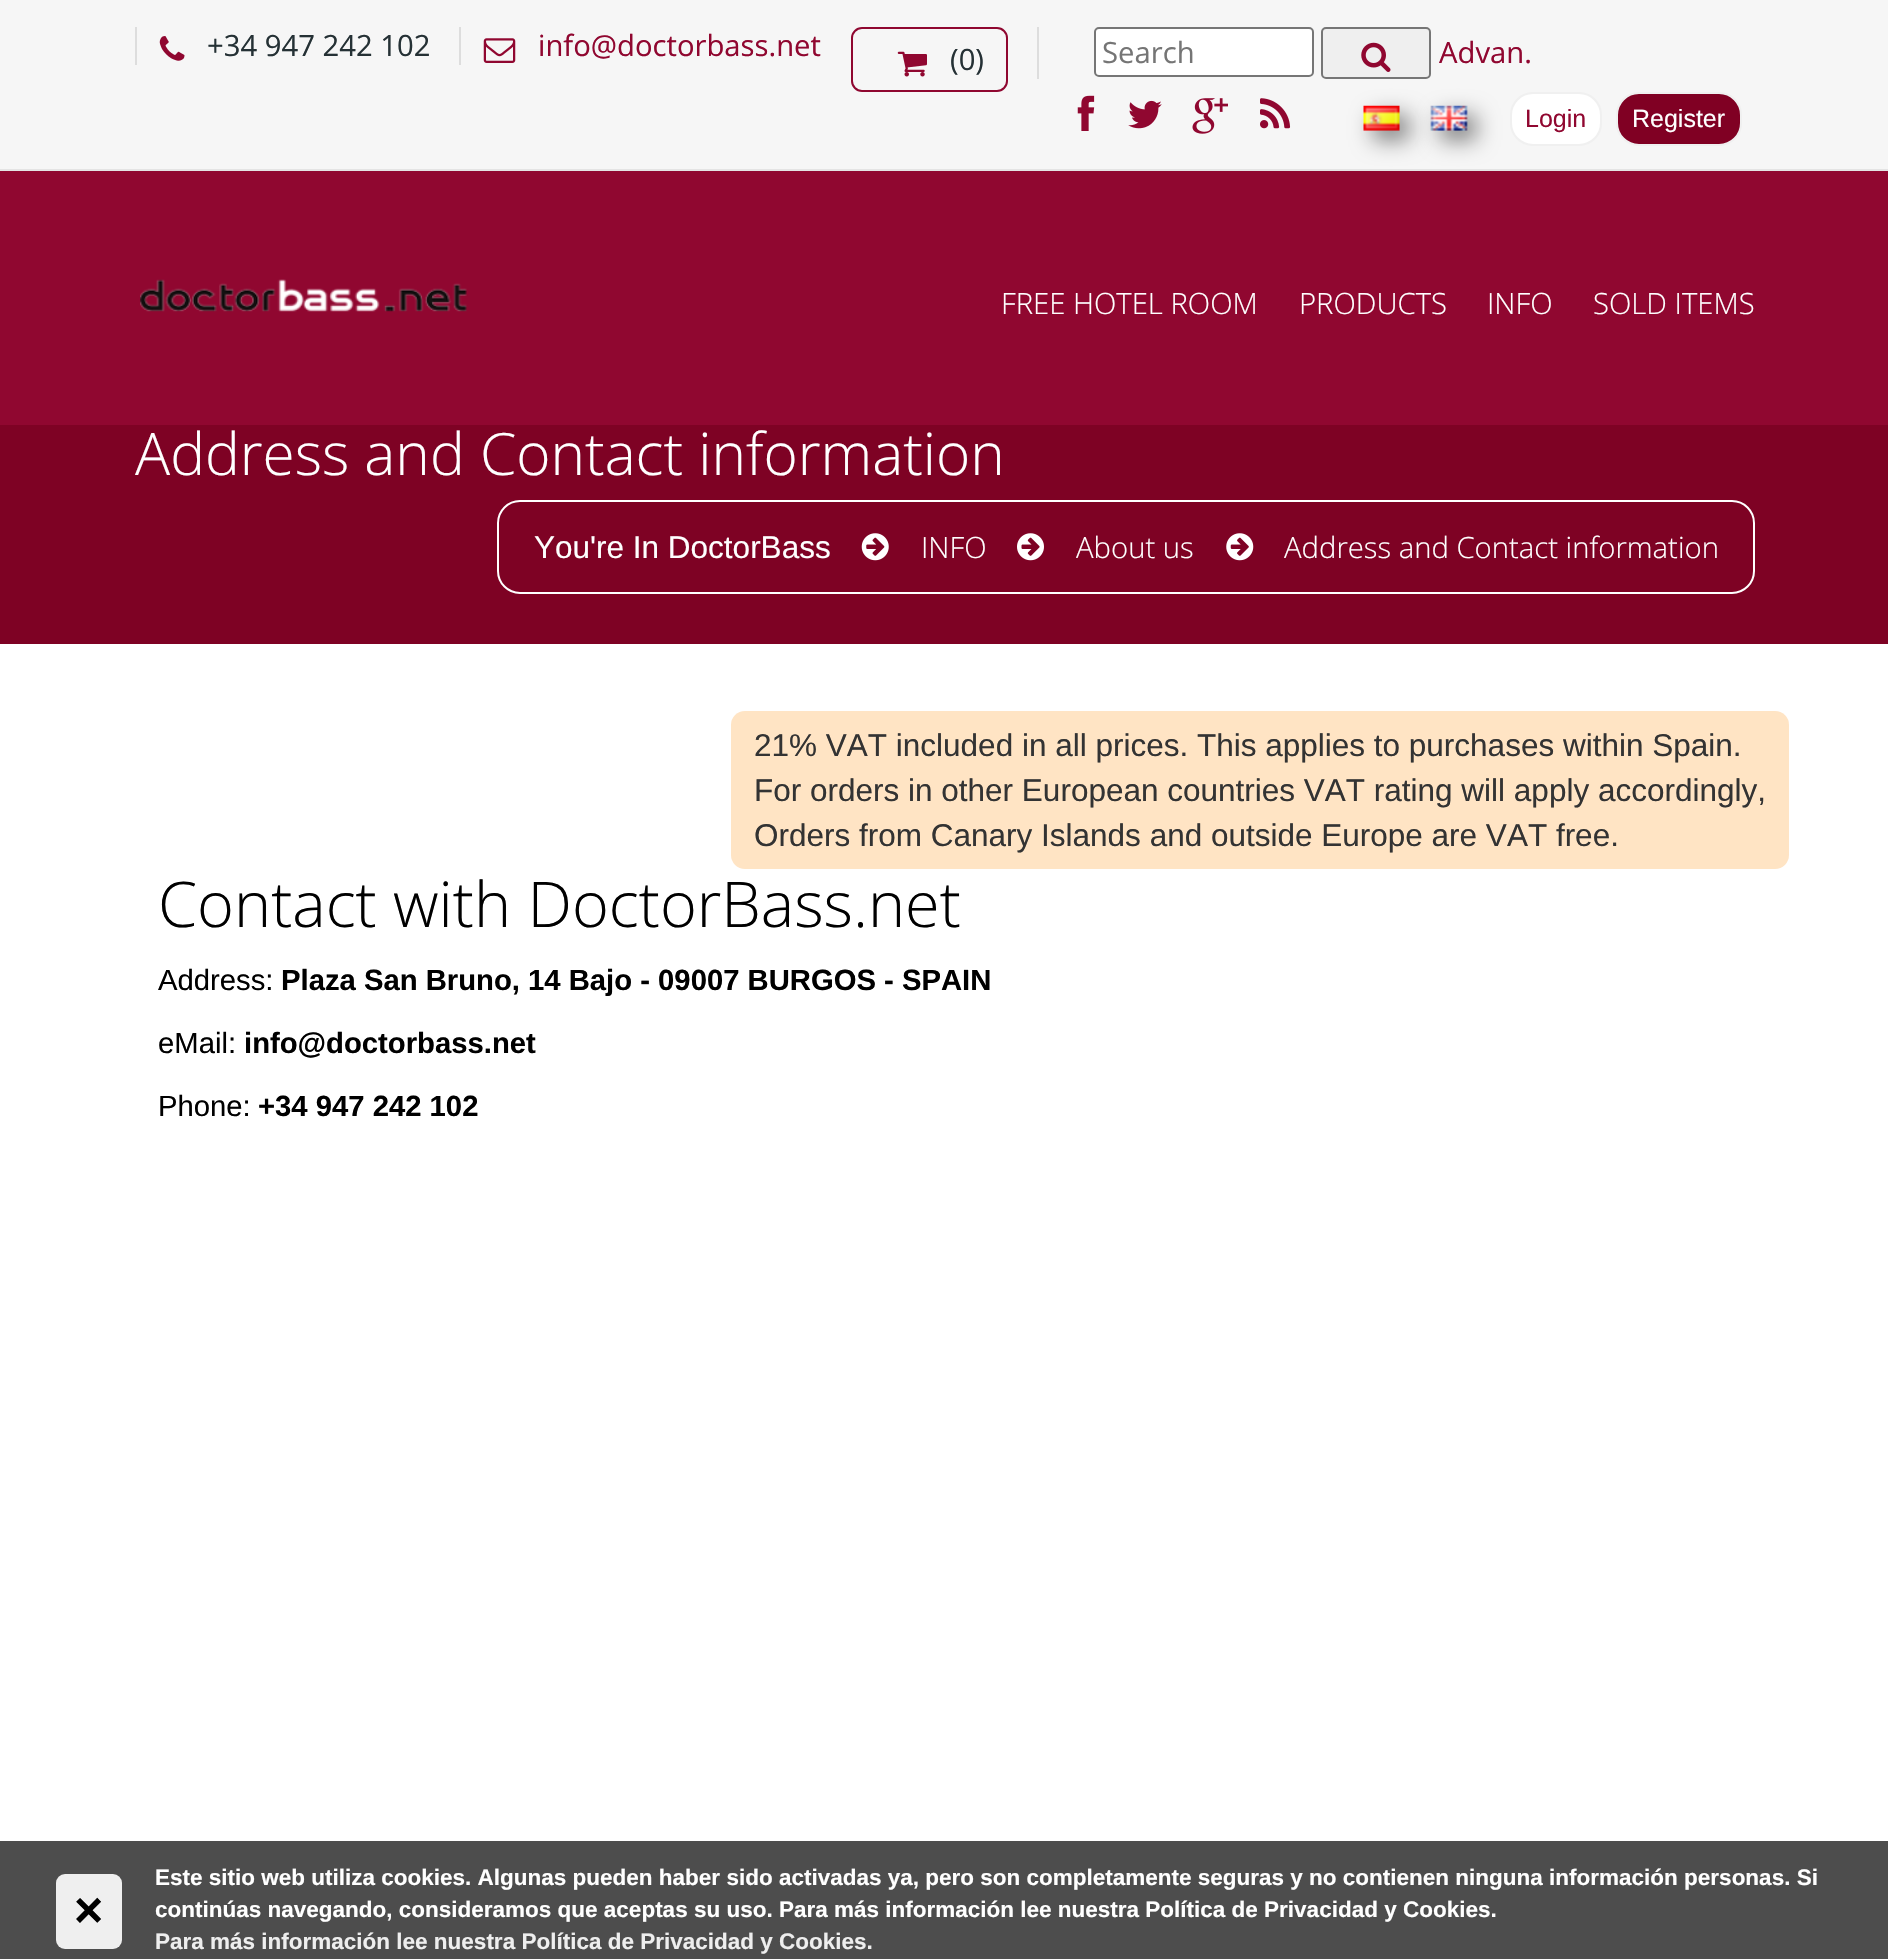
#include "include/core/SkBlurTypes.h"
#include "include/core/SkCanvas.h"
#include "include/core/SkData.h"
#include "include/core/SkFont.h"
#include "include/core/SkFontMgr.h"
#include "include/core/SkImage.h"
#include "include/core/SkMaskFilter.h"
#include "include/core/SkPaint.h"
#include "include/core/SkPathBuilder.h"
#include "include/core/SkTextBlob.h"
#include "include/effects/SkDashPathEffect.h"
#include "include/effects/SkGradientShader.h"
#include "include/utils/SkParsePath.h"

extern sk_sp<SkFontMgr> fontMgr;

void draw(SkCanvas* canvas) {
    SkPaint p;
    p.setAntiAlias(true);
    auto font = [&](const char* family, int weight, float size, bool italic = false) {
        SkFontStyle style(weight, SkFontStyle::kNormal_Width,
            italic ? SkFontStyle::kItalic_Slant : SkFontStyle::kUpright_Slant);
        SkFont result(fontMgr->matchFamilyStyle(family, style), size);
        result.setSubpixel(true);
        return result;
    };
    auto drawPhoto = [&](const char* path, float l, float t, float r, float b) {
        auto image = SkImages::DeferredFromEncodedData(SkData::MakeFromFileName(path));
        canvas->drawImageRect(image, SkRect::MakeLTRB(l, t, r, b), SkSamplingOptions());
    };
    canvas->clear(0xFFFFFFFF);
    {
        const struct { float l, t, r, b; SkColor color; } items[] = {
            {0, 171, 1888, 425, 0xFF900730},
            {0, 0, 1888, 169, 0xFFF6F6F6},
            {0, 169, 1888, 171, 0xFFE4E4E4},
            {135, 27, 137, 65, 0xFFDDDDDD},
        };
        for (auto [l, t, r, b, color] : items) {
            p.setColor(color);
            canvas->drawRect(SkRect::MakeLTRB(l, t, r, b), p);
        }
    }
    drawPhoto("media/1.png", 159, 36, 185, 61);
    auto font1 = font("Open Sans", 400, 29.25f);
    p.setColor(0xFF253135);
    canvas->drawString("+34 947 242 102", 207, 56, font1, p);
    p.setColor(0xFFDDDDDD);
    canvas->drawRect(SkRect::MakeLTRB(459, 27, 461, 65), p);
    drawPhoto("media/2.png", 483, 38, 516, 63);
    p.setColor(0xFF900730);
    canvas->drawString("info@doctorbass.net", 538, 56, font1, p);
    p.setStyle(SkPaint::kStroke_Style);
    p.setStrokeWidth(2);
    p.setColor(0xFF8F0730);
    canvas->drawRoundRect(SkRect::MakeLTRB(852, 28, 1007, 91), 10, 10, p);
    drawPhoto("media/3.png", 897, 51, 927, 77);
    p.setStyle(SkPaint::kFill_Style);
    p.setColor(0xFF253135);
    canvas->drawString("(0)", 950, 70, font1, p);
    p.setColor(0xFFDDDDDD);
    canvas->drawRect(SkRect::MakeLTRB(1037, 27, 1039, 79), p);
    p.setColor(0xFFFFFFFF);
    canvas->drawRoundRect(SkRect::MakeLTRB(1095, 28, 1313, 76), 4, 4, p);
    p.setStyle(SkPaint::kStroke_Style);
    p.setColor(0xFF767676);
    canvas->drawRoundRect(SkRect::MakeLTRB(1095, 28, 1313, 76), 4, 4, p);
    p.setStyle(SkPaint::kFill_Style);
    p.setColor(0xFF757575);
    canvas->drawString("Search", 1102, 63, font1, p);
    p.setColor(0xFFEFEFEF);
    canvas->drawRoundRect(SkRect::MakeLTRB(1322, 28, 1430, 78), 4, 4, p);
    p.setStyle(SkPaint::kStroke_Style);
    p.setColor(0xFF767676);
    canvas->drawRoundRect(SkRect::MakeLTRB(1322, 28, 1430, 78), 4, 4, p);
    drawPhoto("media/4.png", 1361, 42, 1391, 72);
    p.setStyle(SkPaint::kFill_Style);
    p.setColor(0xFF900730);
    canvas->drawString("Advan.", 1439, 63, font1, p);
    drawPhoto("media/5.png", 1077, 95, 1095, 131);
    drawPhoto("media/6.png", 1128, 100, 1162, 129);
    drawPhoto("media/7.png", 1192, 98, 1228, 134);
    drawPhoto("media/8.png", 1260, 98, 1291, 129);
    p.setColor(0x80000000);
    p.setMaskFilter(SkMaskFilter::MakeBlur(kNormal_SkBlurStyle, 11));
    canvas->drawRect(SkRect::MakeLTRB(1373, 115, 1409, 140), p);
    p.setMaskFilter(nullptr);
    drawPhoto("media/9.png", 1363, 105, 1400, 131);
    p.setMaskFilter(SkMaskFilter::MakeBlur(kNormal_SkBlurStyle, 11));
    canvas->drawRect(SkRect::MakeLTRB(1440, 115, 1476, 140), p);
    p.setMaskFilter(nullptr);
    drawPhoto("media/10.png", 1430, 105, 1468, 131);
    p.setColor(0xFFFFFFFF);
    canvas->drawRoundRect(SkRect::MakeLTRB(1511, 93, 1601, 145), 22, 22, p);
    p.setStyle(SkPaint::kStroke_Style);
    p.setColor(0xFFF0F0F0);
    canvas->drawRoundRect(SkRect::MakeLTRB(1511, 93, 1601, 145), 22, 22, p);
    auto font2 = font("Liberation Sans", 400, 25);
    p.setStyle(SkPaint::kFill_Style);
    p.setColor(0xFF900730);
    canvas->drawString("Login", 1525, 127, font2, p);
    p.setColor(0xFF800023);
    canvas->drawRoundRect(SkRect::MakeLTRB(1617, 93, 1741, 145), 22, 22, p);
    p.setStyle(SkPaint::kStroke_Style);
    p.setColor(0xFFF0F0F0);
    canvas->drawRoundRect(SkRect::MakeLTRB(1617, 93, 1741, 145), 22, 22, p);
    p.setStyle(SkPaint::kFill_Style);
    p.setColor(0xFFFFFFFF);
    canvas->drawString("Register", 1632, 127, font2, p);
    drawPhoto("media/11.png", 140, 279, 467, 312);
    auto font3 = font("Open Sans", 300, 29.25f);
    {
        const struct { const char* s; float x, y; } items[] = {
            {"FREE HOTEL ROOM", 1001, 314},
            {"PRODUCTS", 1299, 314},
            {"INFO", 1487, 314},
            {"SOLD ITEMS", 1593, 314},
        };
        for (auto [s, x, y] : items) {
            canvas->drawString(s, x, y, font3, p);
        }
    }
    p.setColor(0xFF7E0224);
    canvas->drawRect(SkRect::MakeLTRB(0, 425, 1888, 644), p);
    auto font4 = font("Open Sans", 300, 58.5f);
    p.setColor(0xFFFFFFFF);
    canvas->drawString("Address and Contact information", 135, 475, font4, p);
    p.setStyle(SkPaint::kStroke_Style);
    canvas->drawRoundRect(SkRect::MakeLTRB(498, 501, 1754, 593), 22, 22, p);
    auto font5 = font("Liberation Sans", 400, 31.5f);
    p.setStyle(SkPaint::kFill_Style);
    canvas->drawString("You're In DoctorBass", 534, 558, font5, p);
    drawPhoto("media/12.png", 861, 533, 889, 561);
    canvas->drawString("INFO", 921, 558, font3, p);
    drawPhoto("media/13.png", 1017, 533, 1044, 561);
    canvas->drawString("About us", 1076, 558, font3, p);
    drawPhoto("media/14.png", 1226, 533, 1254, 561);
    canvas->drawString("Address and Contact information", 1284, 558, font3, p);
    p.setColor(0xFFFFE4C4);
    canvas->drawRoundRect(SkRect::MakeLTRB(731, 711, 1789, 869), 14, 14, p);
    p.setColor(0xFF333333);
    {
        const struct { const char* s; float x, y; } items[] = {
            {"21% VAT included in all prices. This applies to purchases within Spain.", 754, 756},
            {"For orders in other European countries VAT rating will apply accordingly,", 754, 801},
            {"Orders from Canary Islands and outside Europe are VAT free.", 754, 846},
        };
        for (auto [s, x, y] : items) {
            canvas->drawString(s, x, y, font5, p);
        }
    }
    auto font6 = font("Open Sans", 300, 63);
    p.setColor(0xFF000000);
    canvas->drawString("Contact with DoctorBass.net", 158, 927, font6, p);
    auto font7 = font("Liberation Sans", 400, 29.25f);
    canvas->drawString("Address:", 158, 990, font7, p);
    auto font8 = font("Liberation Sans", 700, 29.25f);
    canvas->drawString("Plaza San Bruno, 14 Bajo - 09007 BURGOS - SPAIN", 281, 990, font8, p);
    canvas->drawString("eMail:", 158, 1053, font7, p);
    canvas->drawString("info@doctorbass.net", 244, 1053, font8, p);
    canvas->drawString("Phone:", 158, 1116, font7, p);
    canvas->drawString("+34 947 242 102", 258, 1116, font8, p);
    p.setColor(0xFF4D4D4D);
    canvas->drawRect(SkRect::MakeLTRB(0, 1841, 1888, 1959), p);
    auto font9 = font("Liberation Sans", 700, 22.5f);
    p.setColor(0xFFFFFFFF);
    canvas->drawString("Este sitio web utiliza cookies. Algunas pueden haber sido activadas ya, pero son completamente seguras y no contienen ninguna información personas. Si", 155, 1885, font9, p);
    p.setColor(0xFFEFEFEF);
    canvas->drawRoundRect(SkRect::MakeLTRB(56, 1874, 122, 1949), 9, 9, p);
    auto font10 = font("Liberation Sans", 700, 50);
    p.setColor(0xFF000000);
    canvas->drawString("×", 74, 1927, font10, p);
    p.setColor(0xFFFFFFFF);
    canvas->drawString("continúas navegando, consideramos que aceptas su uso. Para más información lee nuestra Política de Privacidad y Cookies.", 155, 1917, font9, p);
    p.setColor(0xFFEEEEEE);
    canvas->drawString("Para más información lee nuestra Política de Privacidad y Cookies.", 155, 1949, font9, p);
}
